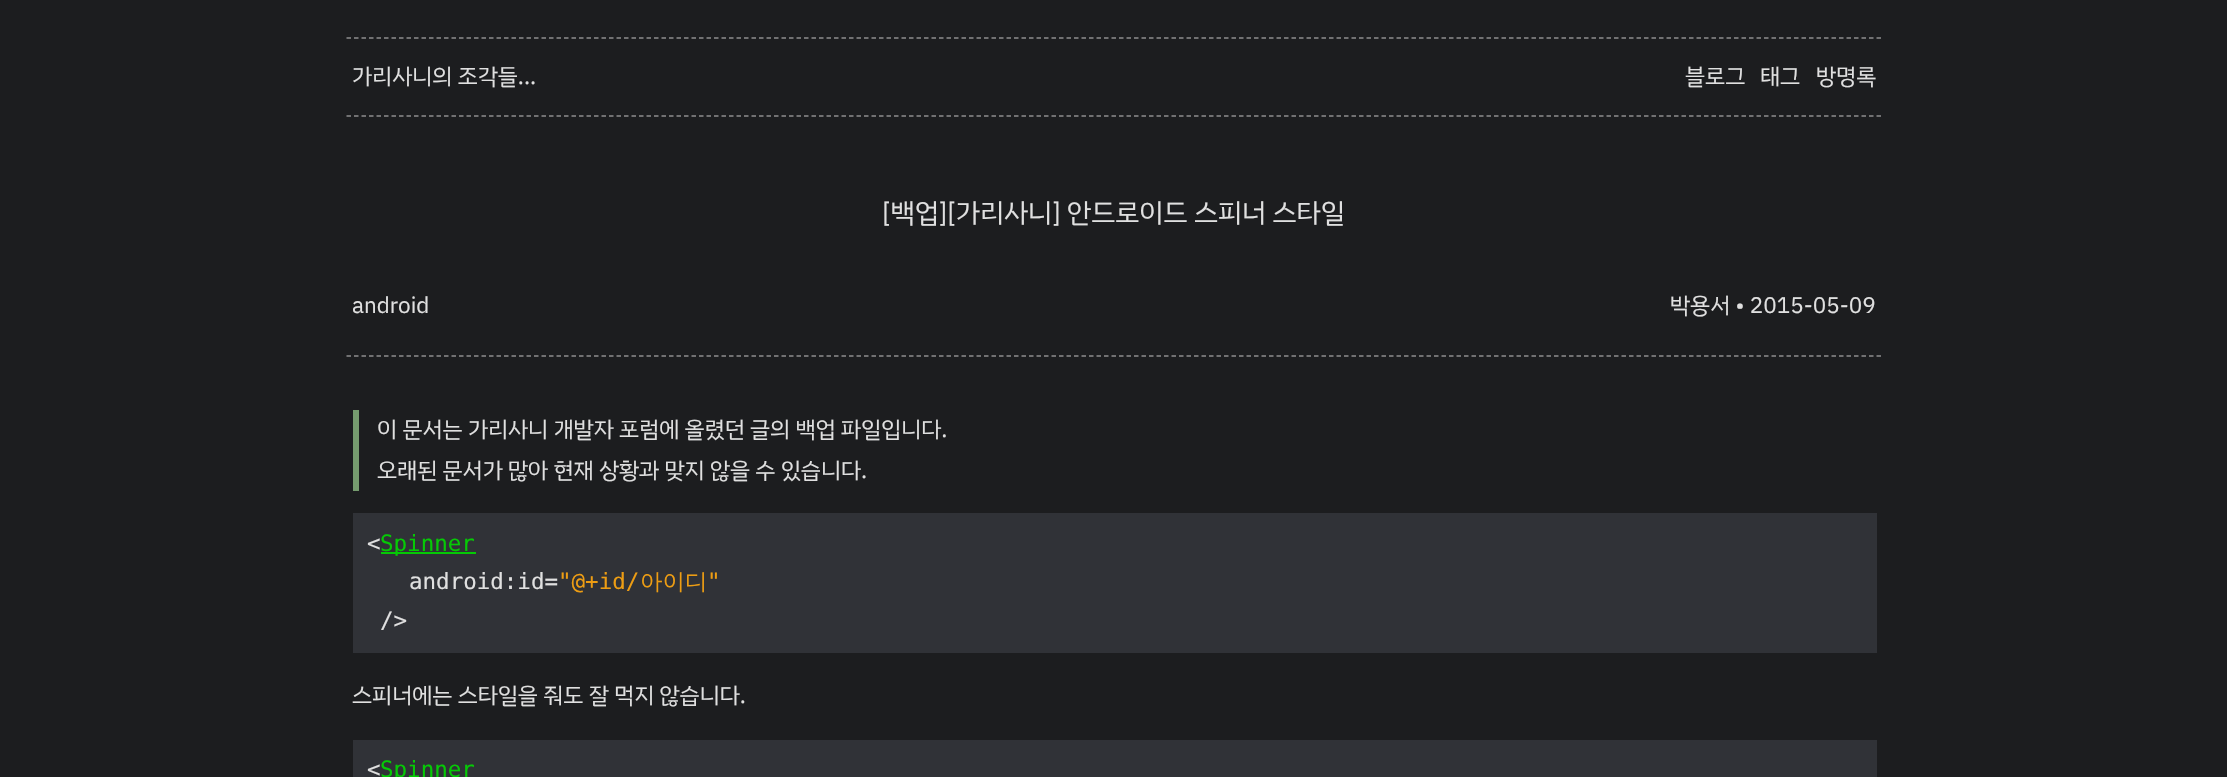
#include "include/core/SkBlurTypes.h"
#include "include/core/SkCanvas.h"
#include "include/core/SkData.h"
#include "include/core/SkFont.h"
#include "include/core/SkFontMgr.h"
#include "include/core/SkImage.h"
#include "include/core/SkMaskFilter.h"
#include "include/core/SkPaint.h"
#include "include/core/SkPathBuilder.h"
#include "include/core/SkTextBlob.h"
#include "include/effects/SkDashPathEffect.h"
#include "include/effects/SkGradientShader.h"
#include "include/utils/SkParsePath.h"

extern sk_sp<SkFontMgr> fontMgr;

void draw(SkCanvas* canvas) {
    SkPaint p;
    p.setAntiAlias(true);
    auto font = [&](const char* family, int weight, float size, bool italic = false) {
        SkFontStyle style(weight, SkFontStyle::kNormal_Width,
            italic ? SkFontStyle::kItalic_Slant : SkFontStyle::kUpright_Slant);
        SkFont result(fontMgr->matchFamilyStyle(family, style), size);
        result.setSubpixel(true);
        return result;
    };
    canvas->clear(0xFF1C1D1F);
    p.setStyle(SkPaint::kStroke_Style);
    p.setStrokeWidth(1.5f);
    p.setColor(0xFF8D8D8D);
    p.setPathEffect(SkDashPathEffect::Make({{4.5f, 3}}, 0));
    canvas->drawPath(SkPathBuilder().moveTo(346.5f, 38).lineTo(1882.5f, 38).detach(), p);
    p.setPathEffect(nullptr);
    p.setPathEffect(SkDashPathEffect::Make({{4.5f, 3}}, 0));
    canvas->drawPath(SkPathBuilder().moveTo(346.5f, 116).lineTo(1882.5f, 116).detach(), p);
    p.setPathEffect(nullptr);
    auto font1 = font("IBM Plex Sans KR", 400, 22.5f);
    p.setStyle(SkPaint::kFill_Style);
    p.setColor(0xFFE0E0E0);
    {
        const struct { const char* s; float x, y; } items[] = {
            {"가리사니의 조각들...", 352, 84},
            {"블로그", 1685, 84},
            {"태그", 1760, 84},
            {"방명록", 1816, 84},
        };
        for (auto [s, x, y] : items) {
            canvas->drawString(s, x, y, font1, p);
        }
    }
    auto font2 = font("IBM Plex Sans KR", 400, 27);
    canvas->drawString("[백업][가리사니] 안드로이드 스피너 스타일", 882, 222, font2, p);
    canvas->drawString("android", 352, 313, font1, p);
    canvas->drawString("박용서 • 2015-05-09", 1670, 313, font1, p);
    p.setStyle(SkPaint::kStroke_Style);
    p.setColor(0xFF8D8D8D);
    p.setPathEffect(SkDashPathEffect::Make({{4.5f, 3}}, 0));
    canvas->drawPath(SkPathBuilder().moveTo(346.5f, 356).lineTo(1882.5f, 356).detach(), p);
    p.setPathEffect(nullptr);
    p.setStyle(SkPaint::kFill_Style);
    p.setColor(0xFF759B6E);
    canvas->drawRect(SkRect::MakeLTRB(353, 410, 359, 491), p);
    p.setColor(0xFFE0E0E0);
    canvas->drawString("이 문서는 가리사니 개발자 포럼에 올렸던 글의 백업 파일입니다.", 377, 437, font1, p);
    canvas->drawString("오래된 문서가 많아 현재 상황과 맞지 않을 수 있습니다.", 377, 478, font1, p);
    p.setColor(0xFF303237);
    canvas->drawRect(SkRect::MakeLTRB(353, 513, 1877, 653), p);
    auto font3 = font("DejaVu Sans Mono", 400, 22.5f);
    p.setColor(0xFFE0E0E0);
    canvas->drawString("<", 367, 551, font3, p);
    p.setColor(0xFF05CA05);
    canvas->drawRect(SkRect::MakeLTRB(381, 552, 476, 554), p);
    canvas->drawString("Spinner", 380, 551, font3, p);
    p.setColor(0xFFE0E0E0);
    canvas->drawString("android:id=", 409, 589, font3, p);
    p.setColor(0xFFED9D13);
    canvas->drawString("\"@+id/", 558, 589, font3, p);
    auto font4 = font("WenQuanYi Zen Hei", 500, 22.5f);
    canvas->drawString("아이디", 640, 589, font4, p);
    canvas->drawString("\"", 707, 589, font3, p);
    p.setColor(0xFFE0E0E0);
    canvas->drawString("/>", 380, 628, font3, p);
    canvas->drawString("스피너에는 스타일을 줘도 잘 먹지 않습니다.", 352, 703, font1, p);
    p.setColor(0xFF303237);
    canvas->drawRect(SkRect::MakeLTRB(353, 740, 1877, 777), p);
    p.setColor(0xFFE0E0E0);
    canvas->drawString("<", 367, 777, font3, p);
    p.setColor(0xFF05CA05);
    canvas->drawString("Spinner", 380, 777, font3, p);
}
